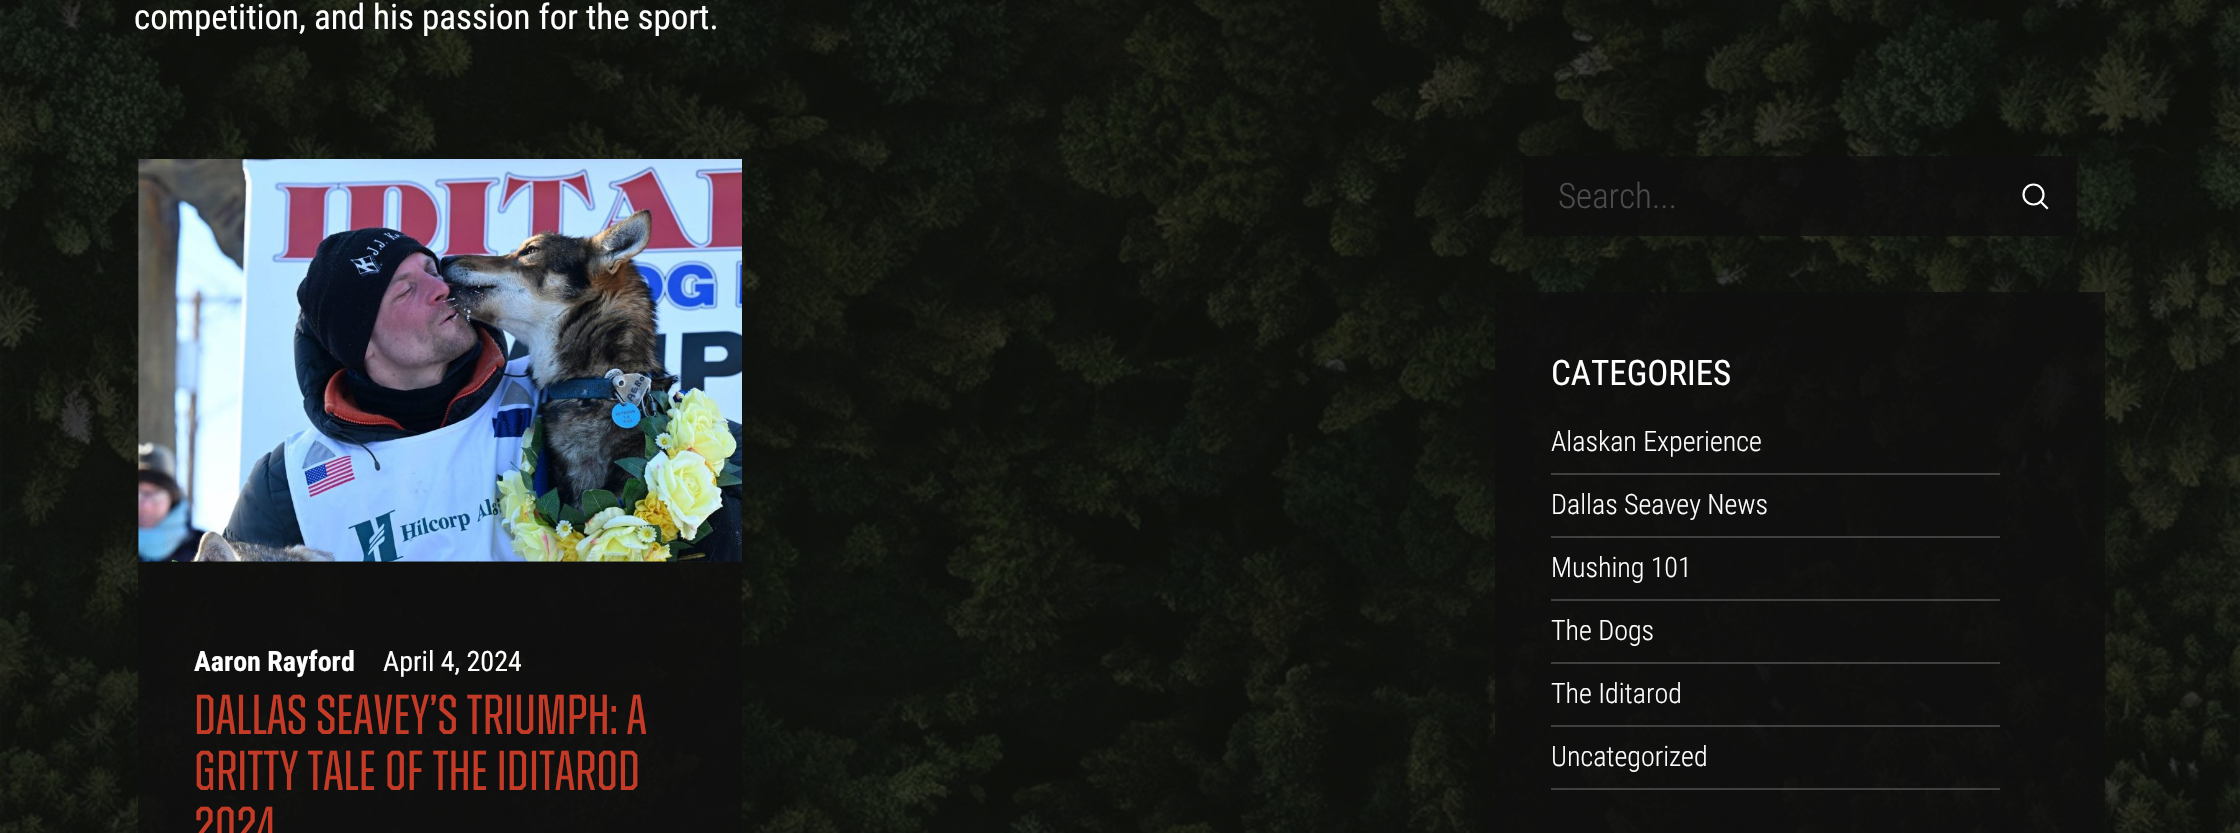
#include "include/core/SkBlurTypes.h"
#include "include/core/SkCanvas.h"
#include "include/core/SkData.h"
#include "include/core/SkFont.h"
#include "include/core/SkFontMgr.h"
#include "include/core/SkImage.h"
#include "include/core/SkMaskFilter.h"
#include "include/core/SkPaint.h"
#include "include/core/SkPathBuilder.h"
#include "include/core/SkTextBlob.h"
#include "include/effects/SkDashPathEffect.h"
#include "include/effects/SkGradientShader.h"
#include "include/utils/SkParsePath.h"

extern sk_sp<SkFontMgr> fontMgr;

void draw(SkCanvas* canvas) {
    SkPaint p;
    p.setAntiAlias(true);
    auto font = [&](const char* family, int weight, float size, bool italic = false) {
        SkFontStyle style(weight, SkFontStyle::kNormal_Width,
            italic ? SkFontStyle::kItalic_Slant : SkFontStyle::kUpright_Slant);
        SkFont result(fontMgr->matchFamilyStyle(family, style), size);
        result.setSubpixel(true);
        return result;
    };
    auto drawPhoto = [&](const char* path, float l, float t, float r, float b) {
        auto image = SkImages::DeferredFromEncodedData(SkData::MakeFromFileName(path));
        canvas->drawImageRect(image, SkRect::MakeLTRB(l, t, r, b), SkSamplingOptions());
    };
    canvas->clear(0xFFFFFFFF);
    drawPhoto("media/1.png", 0, 0, 2240, 833);
    auto font1 = font("Roboto Condensed", 400, 35);
    p.setColor(0xFFFFFFFF);
    canvas->drawString("competition, and his passion for the sport.", 134, 29, font1, p);
    drawPhoto("media/2.png", 138, 159, 742, 562);
    p.setColor(0xCC0E0E0E);
    canvas->drawRect(SkRect::MakeLTRB(138, 562, 742, 833), p);
    auto font2 = font("Roboto Condensed", 700, 28);
    p.setColor(0xFFFFFFFF);
    canvas->drawString("Aaron Rayford", 194, 671, font2, p);
    auto font3 = font("Roboto Condensed", 400, 28);
    canvas->drawString("April 4, 2024", 383, 671, font3, p);
    auto font4 = font("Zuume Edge", 400, 56);
    p.setColor(0xFFC33A27);
    {
        const struct { const char* s; float x, y; } items[] = {
            {"Dallas Seavey’s Triumph: A", 194, 734},
            {"Gritty Tale of the Iditarod", 194, 790},
            {"2024", 194, 846},
        };
        for (auto [s, x, y] : items) {
            canvas->drawString(s, x, y, font4, p);
        }
    }
    p.setColor(0xCC0E0E0E);
    canvas->drawRect(SkRect::MakeLTRB(1523, 156, 2077, 236), p);
    auto font5 = font("Roboto Condensed", 300, 35);
    p.setColor(0xFF4A4B4A);
    canvas->drawString("Search...", 1558, 208, font5, p);
    p.setStyle(SkPaint::kStroke_Style);
    p.setStrokeWidth(2.2f);
    p.setColor(0xFFFFFFFF);
    canvas->drawCircle(2033.5f, 194.5f, 10, p);
    p.setStrokeCap(SkPaint::kSquare_Cap);
    canvas->drawPath(SkPathBuilder().moveTo(2047, 208).lineTo(2040.5f, 201.5f).detach(), p);
    p.setStyle(SkPaint::kFill_Style);
    p.setColor(0xCC0E0E0E);
    canvas->drawRect(SkRect::MakeLTRB(1495, 292, 2105, 833), p);
    p.setColor(0xFFFFFFFF);
    canvas->drawString("CATEGORIES", 1551, 385, font1, p);
    auto font6 = font("Roboto Condensed", 300, 28);
    canvas->drawString("Alaskan Experience", 1551, 451, font6, p);
    p.setColor(0x33FFFFFF);
    canvas->drawRect(SkRect::MakeLTRB(1551, 473, 2000, 475), p);
    p.setColor(0xFFFFFFFF);
    canvas->drawString("Dallas Seavey News", 1551, 514, font6, p);
    p.setColor(0x33FFFFFF);
    canvas->drawRect(SkRect::MakeLTRB(1551, 536, 2000, 538), p);
    p.setColor(0xFFFFFFFF);
    canvas->drawString("Mushing 101", 1551, 577, font6, p);
    p.setColor(0x33FFFFFF);
    canvas->drawRect(SkRect::MakeLTRB(1551, 599, 2000, 601), p);
    p.setColor(0xFFFFFFFF);
    canvas->drawString("The Dogs", 1551, 640, font6, p);
    p.setColor(0x33FFFFFF);
    canvas->drawRect(SkRect::MakeLTRB(1551, 662, 2000, 664), p);
    p.setColor(0xFFFFFFFF);
    canvas->drawString("The Iditarod", 1551, 703, font6, p);
    p.setColor(0x33FFFFFF);
    canvas->drawRect(SkRect::MakeLTRB(1551, 725, 2000, 727), p);
    p.setColor(0xFFFFFFFF);
    canvas->drawString("Uncategorized", 1551, 766, font6, p);
    p.setColor(0x33FFFFFF);
    canvas->drawRect(SkRect::MakeLTRB(1551, 788, 2000, 790), p);
}
